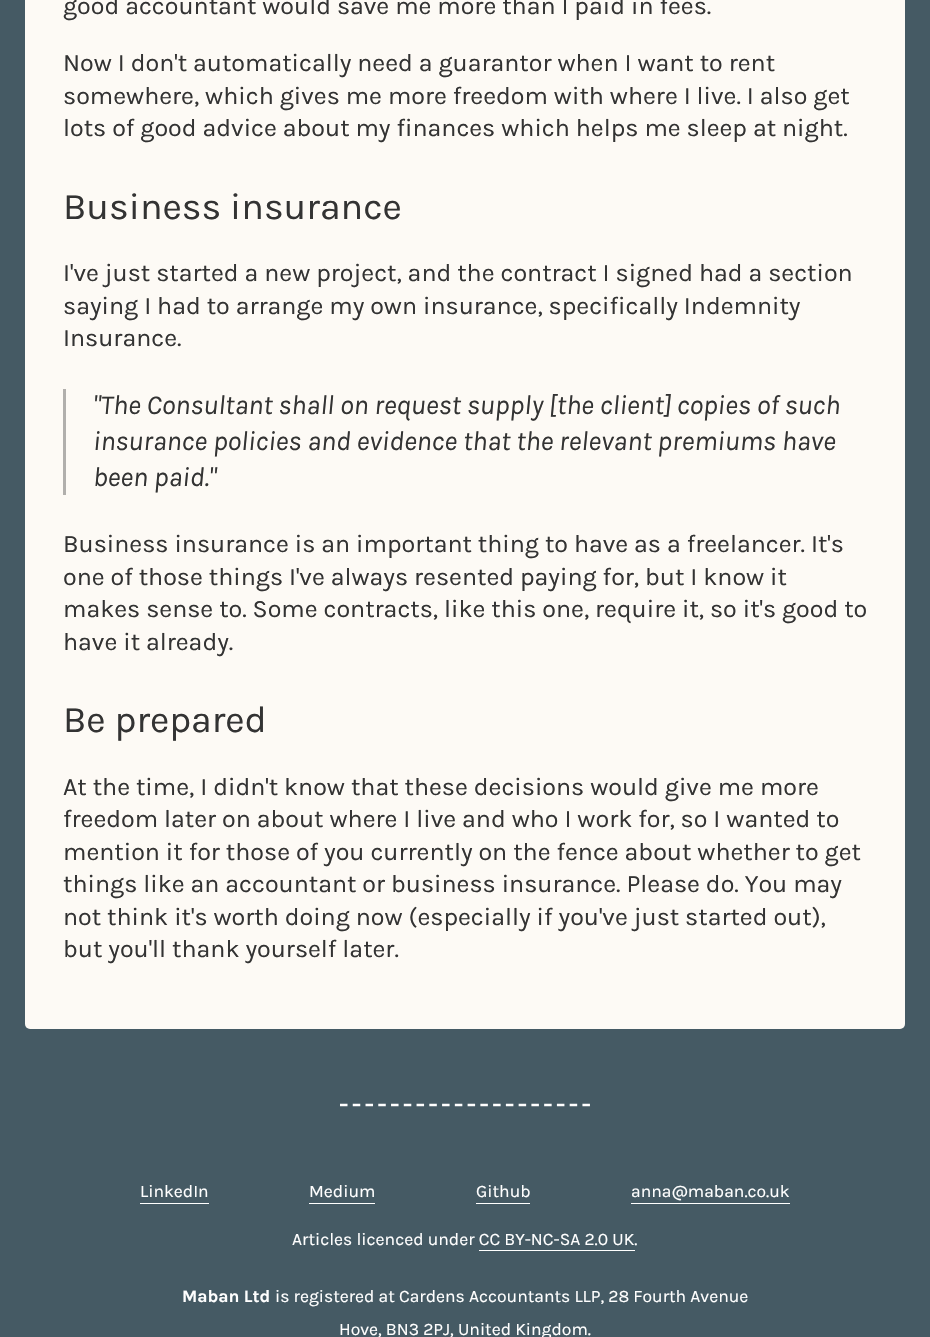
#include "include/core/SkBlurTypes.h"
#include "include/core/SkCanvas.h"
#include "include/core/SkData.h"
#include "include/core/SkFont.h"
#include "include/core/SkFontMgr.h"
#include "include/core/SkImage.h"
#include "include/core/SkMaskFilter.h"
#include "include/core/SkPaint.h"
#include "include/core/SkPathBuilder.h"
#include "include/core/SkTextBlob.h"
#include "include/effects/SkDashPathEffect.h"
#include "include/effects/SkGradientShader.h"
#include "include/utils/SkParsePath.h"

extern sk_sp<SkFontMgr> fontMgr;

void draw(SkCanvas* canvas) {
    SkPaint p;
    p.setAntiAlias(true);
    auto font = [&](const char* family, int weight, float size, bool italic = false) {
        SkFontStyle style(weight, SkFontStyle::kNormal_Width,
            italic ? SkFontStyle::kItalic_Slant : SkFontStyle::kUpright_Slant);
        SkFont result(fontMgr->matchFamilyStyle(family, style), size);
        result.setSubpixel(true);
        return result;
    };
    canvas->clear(0xFF455A64);
    p.setColor(0xFFFDFAF5);
    canvas->drawRoundRect(SkRect::MakeLTRB(25, -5, 905, 1029), 5, 5, p);
    auto font1 = font("Karla", 400, 25);
    p.setColor(0xFF333333);
    {
        const struct { const char* s; float x, y; } items[] = {
            {"good accountant would save me more than I paid in fees.", 63, 14},
            {"Now I don't automatically need a guarantor when I want to rent", 63, 71},
            {"somewhere, which gives me more freedom with where I live. I also get", 63, 104},
            {"lots of good advice about my finances which helps me sleep at night.", 63, 136},
        };
        for (auto [s, x, y] : items) {
            canvas->drawString(s, x, y, font1, p);
        }
    }
    auto font2 = font("Karla", 400, 37.5f);
    canvas->drawString("Business insurance", 63, 219, font2, p);
    {
        const struct { const char* s; float x, y; } items[] = {
            {"I've just started a new project, and the contract I signed had a section", 63, 281},
            {"saying I had to arrange my own insurance, specifically Indemnity", 63, 314},
            {"Insurance.", 63, 346},
        };
        for (auto [s, x, y] : items) {
            canvas->drawString(s, x, y, font1, p);
        }
    }
    p.setColor(0xFFB1AFAC);
    canvas->drawRect(SkRect::MakeLTRB(63, 389, 66, 495), p);
    auto font3 = font("Karla", 400, 27.5f, true);
    p.setColor(0xFF333333);
    {
        const struct { const char* s; float x, y; } items[] = {
            {"\"The Consultant shall on request supply [the client] copies of such", 93, 414},
            {"insurance policies and evidence that the relevant premiums have", 93, 450},
            {"been paid.\"", 93, 486},
        };
        for (auto [s, x, y] : items) {
            canvas->drawString(s, x, y, font3, p);
        }
    }
    {
        const struct { const char* s; float x, y; } items[] = {
            {"Business insurance is an important thing to have as a freelancer. It's", 63, 552},
            {"one of those things I've always resented paying for, but I know it", 63, 585},
            {"makes sense to. Some contracts, like this one, require it, so it's good to", 63, 617},
            {"have it already.", 63, 650},
        };
        for (auto [s, x, y] : items) {
            canvas->drawString(s, x, y, font1, p);
        }
    }
    canvas->drawString("Be prepared", 63, 732, font2, p);
    {
        const struct { const char* s; float x, y; } items[] = {
            {"At the time, I didn't know that these decisions would give me more", 63, 795},
            {"freedom later on about where I live and who I work for, so I wanted to", 63, 827},
            {"mention it for those of you currently on the fence about whether to get", 63, 860},
            {"things like an accountant or business insurance. Please do. You may", 63, 892},
            {"not think it's worth doing now (especially if you've just started out),", 63, 925},
            {"but you'll thank yourself later.", 63, 957},
        };
        for (auto [s, x, y] : items) {
            canvas->drawString(s, x, y, font1, p);
        }
    }
    p.setStyle(SkPaint::kStroke_Style);
    p.setStrokeWidth(2.5f);
    p.setColor(0xFFFFFFFF);
    p.setPathEffect(SkDashPathEffect::Make({{7.5f, 5.26f}}, 0));
    canvas->drawPath(SkPathBuilder().moveTo(340, 1105).lineTo(590, 1105).detach(), p);
    p.setPathEffect(nullptr);
    auto font4 = font("Karla", 400, 17.5f);
    p.setStyle(SkPaint::kFill_Style);
    canvas->drawString("LinkedIn", 140, 1197, font4, p);
    canvas->drawRect(SkRect::MakeLTRB(140, 1203, 209, 1204), p);
    canvas->drawString("Medium", 309, 1197, font4, p);
    canvas->drawRect(SkRect::MakeLTRB(309, 1203, 375, 1204), p);
    canvas->drawString("Github", 476, 1197, font4, p);
    canvas->drawRect(SkRect::MakeLTRB(476, 1203, 530, 1204), p);
    canvas->drawString("anna@maban.co.uk", 631, 1197, font4, p);
    canvas->drawRect(SkRect::MakeLTRB(631, 1203, 790, 1204), p);
    canvas->drawString("Articles licenced under CC BY-NC-SA 2.0 UK.", 292, 1245, font4, p);
    canvas->drawRect(SkRect::MakeLTRB(479, 1250, 635, 1251), p);
    auto font5 = font("Karla", 700, 17.5f);
    canvas->drawString("Maban Ltd", 182, 1302, font5, p);
    canvas->drawString("is registered at Cardens Accountants LLP, 28 Fourth Avenue", 275, 1302, font4, p);
    canvas->drawString("Hove, BN3 2PJ, United Kingdom.", 339, 1335, font4, p);
}
